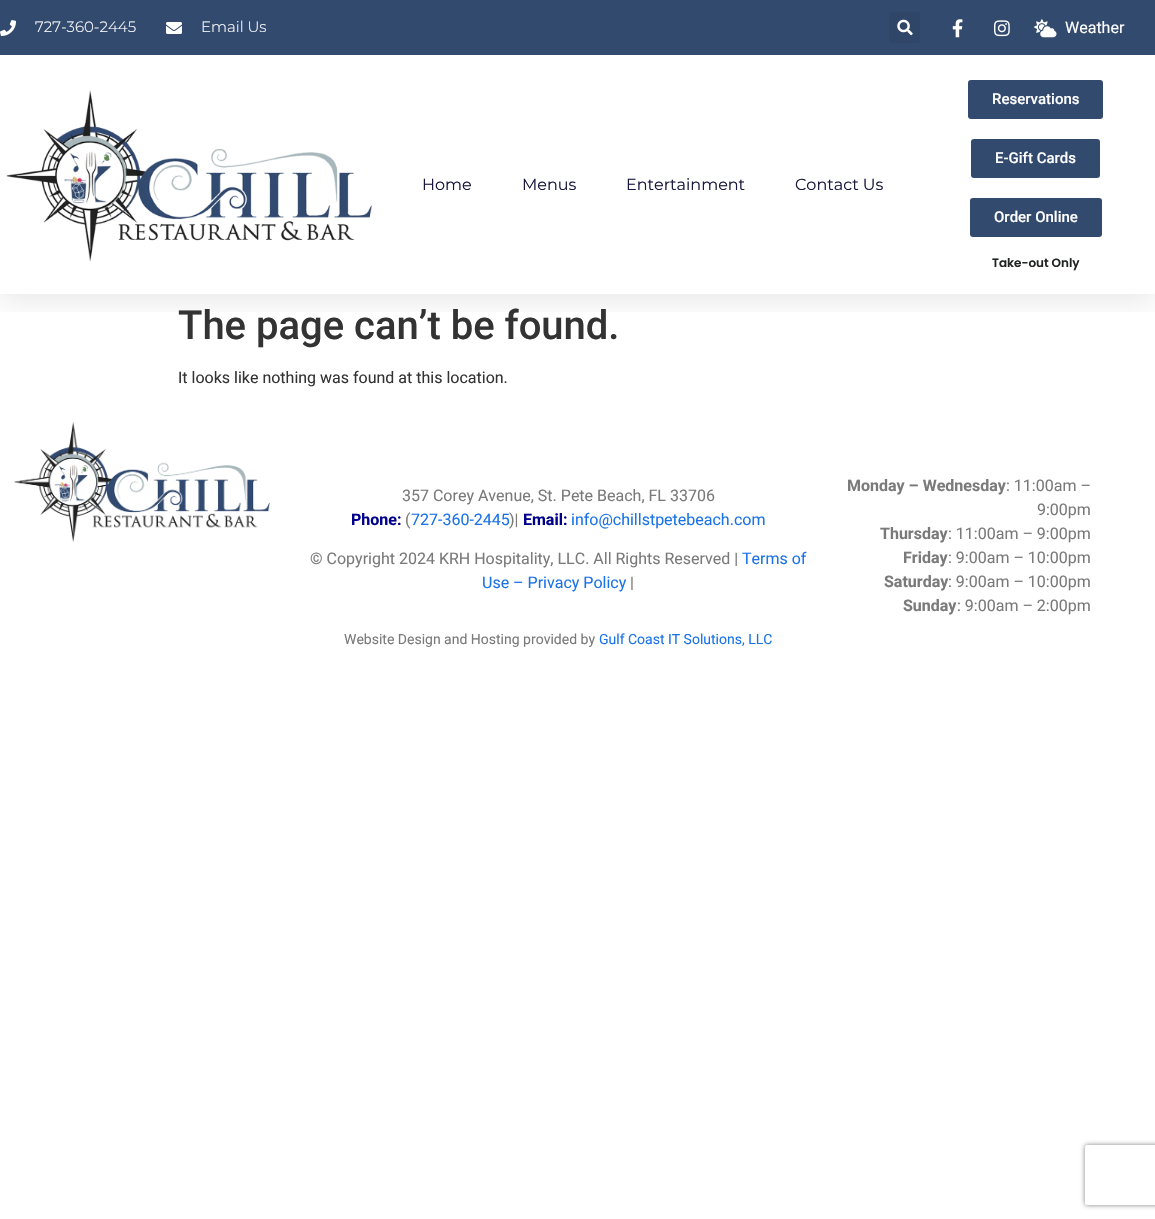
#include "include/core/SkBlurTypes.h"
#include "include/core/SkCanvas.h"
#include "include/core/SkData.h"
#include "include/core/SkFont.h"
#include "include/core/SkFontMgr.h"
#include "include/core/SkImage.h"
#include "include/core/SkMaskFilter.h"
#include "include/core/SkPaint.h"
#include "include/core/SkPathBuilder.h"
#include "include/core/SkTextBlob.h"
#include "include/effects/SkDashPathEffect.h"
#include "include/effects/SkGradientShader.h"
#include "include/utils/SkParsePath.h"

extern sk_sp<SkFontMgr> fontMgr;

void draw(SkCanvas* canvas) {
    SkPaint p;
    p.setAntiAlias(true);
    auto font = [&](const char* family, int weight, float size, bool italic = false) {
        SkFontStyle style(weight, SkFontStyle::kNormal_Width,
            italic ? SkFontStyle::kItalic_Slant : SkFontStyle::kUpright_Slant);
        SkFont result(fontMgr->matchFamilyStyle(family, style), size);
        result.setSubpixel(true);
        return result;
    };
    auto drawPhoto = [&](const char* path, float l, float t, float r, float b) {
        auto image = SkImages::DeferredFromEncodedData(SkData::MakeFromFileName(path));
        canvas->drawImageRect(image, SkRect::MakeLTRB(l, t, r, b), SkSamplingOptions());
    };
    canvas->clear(0xFFFFFFFF);
    canvas->save();
    canvas->clipRect(SkRect::MakeLTRB(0, 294, 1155, 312));
    p.setColor(0x1A000000);
    p.setMaskFilter(SkMaskFilter::MakeBlur(kNormal_SkBlurStyle, 15));
    canvas->drawRect(SkRect::MakeLTRB(0, 5, 1155, 299), p);
    p.setMaskFilter(nullptr);
    canvas->restore();
    p.setColor(0xFF334A6F);
    canvas->drawRect(SkRect::MakeLTRB(0, 0, 1155, 55), p);
    drawPhoto("media/1.png", 0, 20, 16, 36);
    auto font1 = font("Montserrat", 300, 15);
    p.setColor(0xFFFFFFFF);
    canvas->drawString("727-360-2445", 35, 32, font1, p);
    drawPhoto("media/2.png", 166, 22, 182, 34);
    canvas->drawString("Email Us", 201, 32, font1, p);
    p.setColor(0xFF304669);
    canvas->drawRoundRect(SkRect::MakeLTRB(889, 12, 920, 43), 3, 3, p);
    drawPhoto("media/3.png", 897, 19, 913, 36);
    drawPhoto("media/4.png", 952, 19, 963, 38);
    drawPhoto("media/5.png", 994, 20, 1010, 37);
    drawPhoto("media/6.png", 1034, 19, 1057, 38);
    auto font2 = font("Roboto", 400, 16);
    p.setColor(0xFFFFFFFF);
    canvas->drawString("Weather", 1065, 33, font2, p);
    drawPhoto("media/7.png", 6, 90, 373, 262);
    auto font3 = font("Montserrat", 400, 16);
    p.setColor(0xFF16163F);
    {
        const struct { const char* s; float x, y; } items[] = {
            {"Home", 422, 190},
            {"Menus", 522, 190},
            {"Entertainment", 626, 190},
            {"Contact Us", 795, 190},
        };
        for (auto [s, x, y] : items) {
            canvas->drawString(s, x, y, font3, p);
        }
    }
    p.setColor(0xFF334A6F);
    canvas->drawRoundRect(SkRect::MakeLTRB(968, 80, 1103, 119), 3, 3, p);
    auto font4 = font("Roboto", 500, 15);
    p.setColor(0xFFFFFFFF);
    canvas->drawString("Reservations", 992, 104, font4, p);
    p.setColor(0xFF334A6F);
    canvas->drawRoundRect(SkRect::MakeLTRB(971, 139, 1100, 178), 3, 3, p);
    p.setColor(0xFFFFFFFF);
    canvas->drawString("E-Gift Cards", 995, 163, font4, p);
    p.setColor(0xFF334A6F);
    canvas->drawRoundRect(SkRect::MakeLTRB(970, 198, 1102, 237), 3, 3, p);
    p.setColor(0xFFFFFFFF);
    canvas->drawString("Order Online", 994, 222, font4, p);
    auto font5 = font("Poppins", 600, 12);
    p.setColor(0xFF212324);
    canvas->drawString("Take-out Only", 992, 267, font5, p);
    auto font6 = font("Roboto", 500, 40);
    p.setColor(0xFF333333);
    canvas->drawString("The page can’t be found.", 178, 339, font6, p);
    canvas->drawString("It looks like nothing was found at this location.", 178, 383, font2, p);
    drawPhoto("media/8.png", 14, 422, 270, 542);
    p.setColor(0xFF7A7A7A);
    canvas->drawString("357 Corey Avenue, St. Pete Beach, FL 33706", 402, 501, font2, p);
    auto font7 = font("Roboto", 700, 16);
    p.setColor(0xFF00008B);
    canvas->drawString("Phone:", 351, 525, font7, p);
    p.setColor(0xFF7A7A7A);
    canvas->drawString("(", 405, 525, font2, p);
    p.setColor(0xFF1A73E8);
    canvas->drawString("727-360-2445", 411, 525, font2, p);
    p.setColor(0xFF7A7A7A);
    canvas->drawString(")|", 509, 525, font2, p);
    p.setColor(0xFF00008B);
    canvas->drawString("Email:", 523, 525, font7, p);
    p.setColor(0xFF1A73E8);
    canvas->drawString("info@chillstpetebeach.com", 571, 525, font2, p);
    p.setColor(0xFF7A7A7A);
    canvas->drawString("© Copyright 2024 KRH Hospitality, LLC. All Rights Reserved |", 310, 564, font2, p);
    p.setColor(0xFF1A73E8);
    canvas->drawString("Terms of", 742, 564, font2, p);
    canvas->drawString("Use – Privacy Policy", 482, 588, font2, p);
    p.setColor(0xFF7A7A7A);
    canvas->drawString("|", 630, 588, font2, p);
    auto font8 = font("Roboto", 400, 14);
    canvas->drawString("Website Design and Hosting provided by", 344, 644, font8, p);
    p.setColor(0xFF1A73E8);
    canvas->drawString("Gulf Coast IT Solutions, LLC", 599, 644, font8, p);
    p.setColor(0xFF7A7A7A);
    canvas->drawString("Monday – Wednesday", 847, 491, font7, p);
    canvas->drawString(": 11:00am –", 1006, 491, font2, p);
    canvas->drawString("9:00pm", 1037, 515, font2, p);
    canvas->drawString("Thursday", 880, 539, font7, p);
    canvas->drawString(": 11:00am – 9:00pm", 948, 539, font2, p);
    canvas->drawString("Friday", 903, 563, font7, p);
    canvas->drawString(": 9:00am – 10:00pm", 948, 563, font2, p);
    canvas->drawString("Saturday", 884, 587, font7, p);
    canvas->drawString(": 9:00am – 10:00pm", 948, 587, font2, p);
    canvas->drawString("Sunday", 903, 611, font7, p);
    canvas->drawString(": 9:00am – 2:00pm", 957, 611, font2, p);
    canvas->save();
    canvas->clipPath(SkPathBuilder(SkPathFillType::kEvenOdd).moveTo(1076, 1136).lineTo(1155, 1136).lineTo(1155, 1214).lineTo(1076, 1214).close().moveTo(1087, 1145).lineTo(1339, 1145).cubicTo(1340, 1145, 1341, 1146, 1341, 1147).lineTo(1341, 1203).cubicTo(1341, 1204, 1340, 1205, 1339, 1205).lineTo(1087, 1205).cubicTo(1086, 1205, 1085, 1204, 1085, 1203).lineTo(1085, 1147).cubicTo(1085, 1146, 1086, 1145, 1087, 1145).close().detach(), true);
    p.setColor(0xFF808080);
    p.setMaskFilter(SkMaskFilter::MakeBlur(kNormal_SkBlurStyle, 2.5f));
    canvas->drawRoundRect(SkRect::MakeLTRB(1085, 1145, 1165, 1205), 2, 2, p);
    p.setMaskFilter(nullptr);
    canvas->restore();
}
